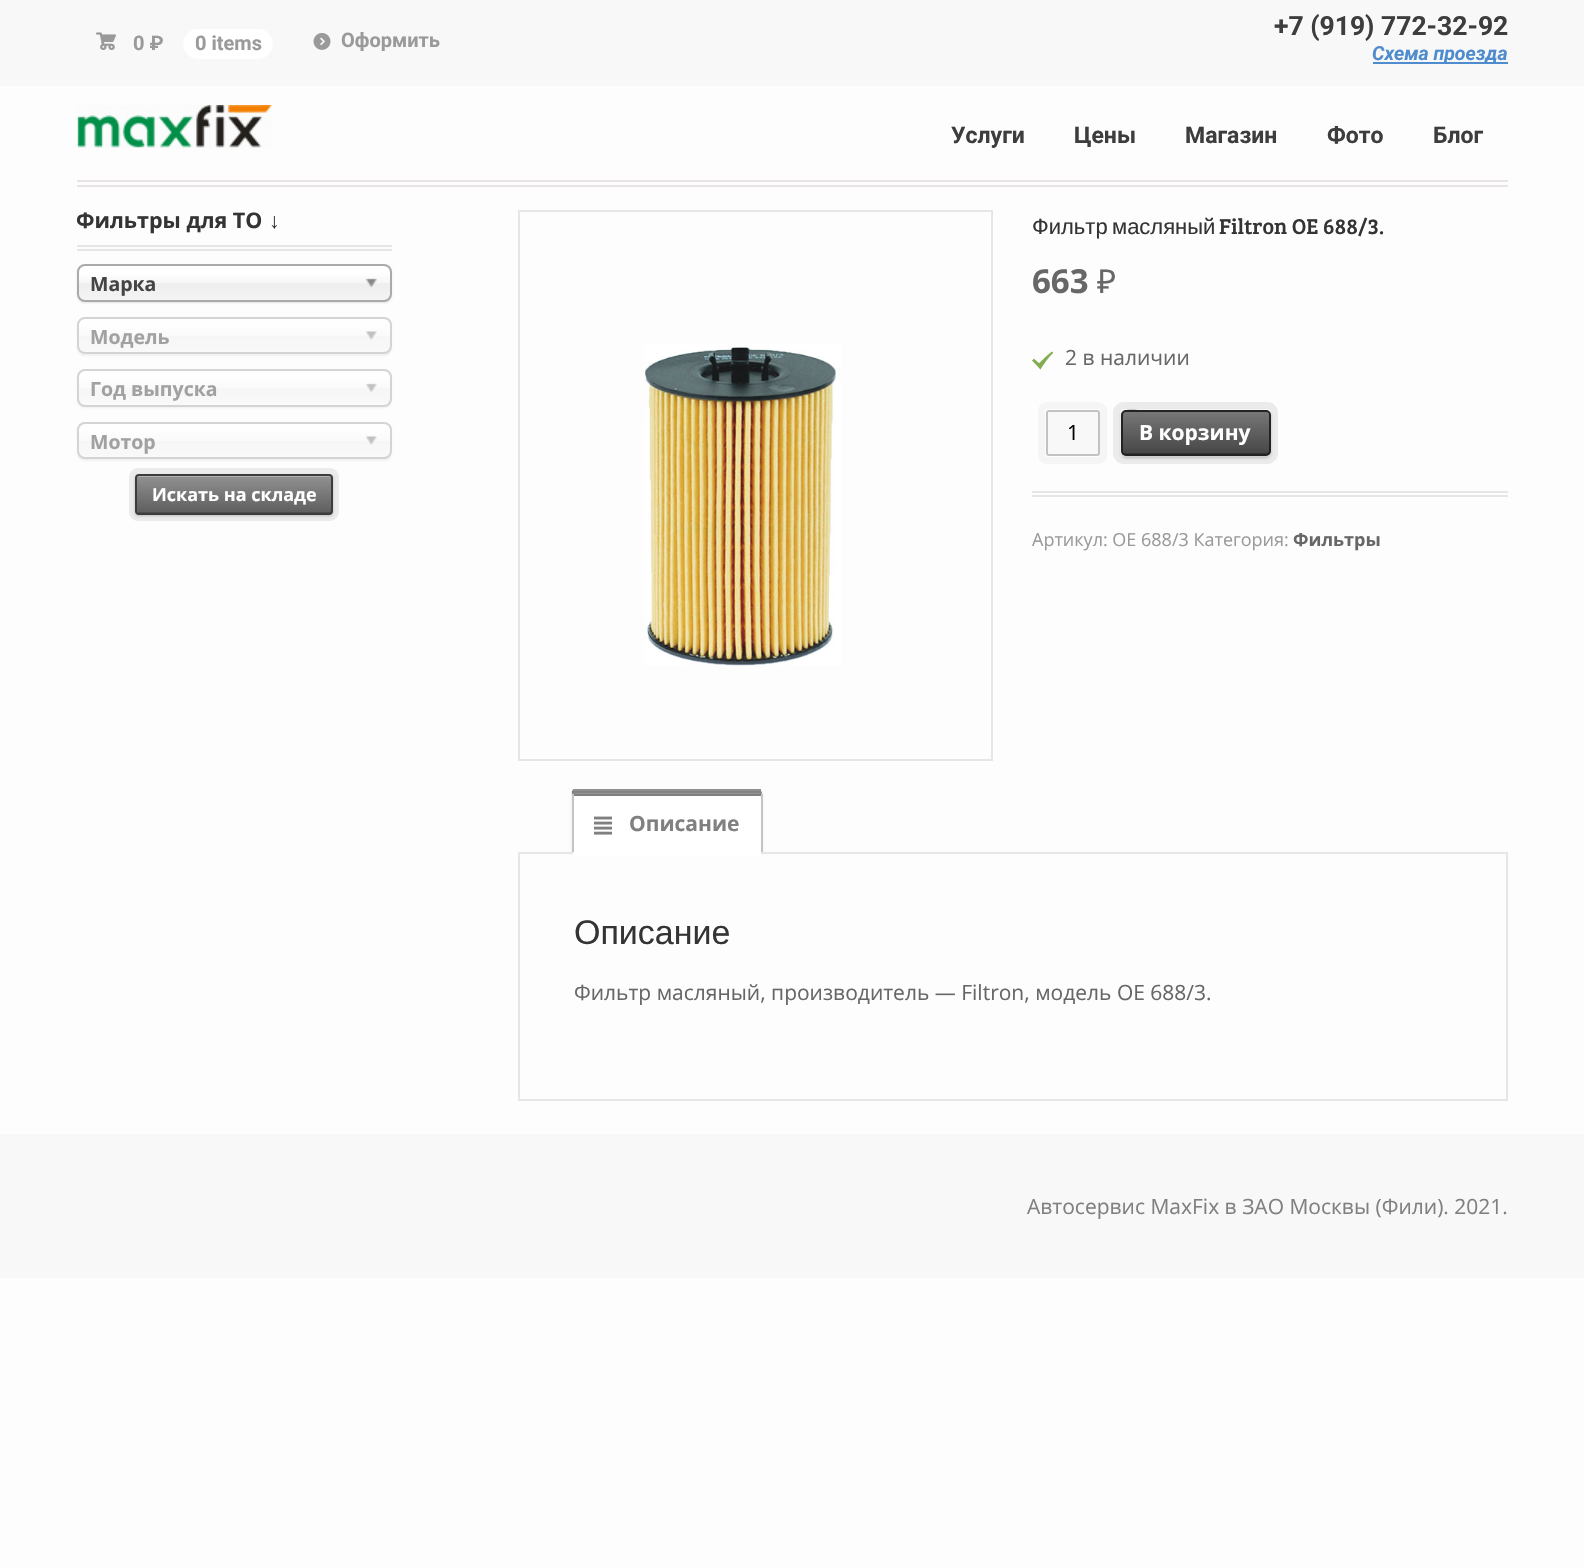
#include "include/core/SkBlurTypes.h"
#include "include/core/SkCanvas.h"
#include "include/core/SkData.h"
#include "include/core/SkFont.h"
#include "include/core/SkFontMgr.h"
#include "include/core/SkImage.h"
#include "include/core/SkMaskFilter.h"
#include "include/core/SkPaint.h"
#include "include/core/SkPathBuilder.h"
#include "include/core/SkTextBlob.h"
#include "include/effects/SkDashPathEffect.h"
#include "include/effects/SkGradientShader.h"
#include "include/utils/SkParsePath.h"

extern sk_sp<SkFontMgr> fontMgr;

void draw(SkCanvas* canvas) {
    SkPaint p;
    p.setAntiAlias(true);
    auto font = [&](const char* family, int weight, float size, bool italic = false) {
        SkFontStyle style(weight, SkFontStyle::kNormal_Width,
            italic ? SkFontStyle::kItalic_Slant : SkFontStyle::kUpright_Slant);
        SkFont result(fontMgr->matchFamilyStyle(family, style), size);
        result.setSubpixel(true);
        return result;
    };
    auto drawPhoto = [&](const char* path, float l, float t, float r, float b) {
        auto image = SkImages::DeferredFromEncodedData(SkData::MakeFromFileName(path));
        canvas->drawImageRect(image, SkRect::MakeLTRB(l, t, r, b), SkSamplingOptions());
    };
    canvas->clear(0xFFFDFDFD);
    p.setColor(0xFFF8F8F8);
    canvas->drawRect(SkRect::MakeLTRB(0, 0, 1584, 86), p);
    auto font1 = font("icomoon", 400, 20);
    p.setColor(0xFF9A9A9A);
    canvas->drawString("£", 96, 50, font1, p);
    auto font2 = font("Roboto", 700, 20);
    canvas->drawString("0 ₽", 133, 50, font2, p);
    p.setColor(0xFFFFFFFF);
    canvas->drawRoundRect(SkRect::MakeLTRB(183, 29, 273, 59), 15, 15, p);
    p.setColor(0xFF9A9A9A);
    canvas->drawString("0 items", 195, 50, font2, p);
    drawPhoto("media/1.png", 313, 33, 331, 50);
    canvas->drawString("Оформить", 341, 47, font2, p);
    auto font3 = font("Roboto", 700, 26.5f);
    p.setColor(0xFF3D3D3D);
    canvas->drawString("+7 (919) 772-32-92", 1274, 35, font3, p);
    p.setColor(0xFF4F8CCE);
    canvas->drawRect(SkRect::MakeLTRB(1373, 62, 1508, 64), p);
    auto font4 = font("Roboto", 700, 19.5f, true);
    canvas->drawString("Схема проезда", 1372, 60, font4, p);
    p.setColor(0xFFE8E4E3);
    canvas->drawRect(SkRect::MakeLTRB(77, 180, 1508, 182), p);
    canvas->drawRect(SkRect::MakeLTRB(77, 185, 1508, 187), p);
    drawPhoto("media/2.png", 76, 105, 272, 149);
    auto font5 = font("Roboto", 700, 23);
    p.setColor(0xFF3D3D3D);
    {
        const struct { const char* s; float x, y; } items[] = {
            {"Услуги", 951, 143},
            {"Цены", 1074, 143},
            {"Магазин", 1185, 143},
            {"Фото", 1327, 143},
            {"Блог", 1433, 143},
        };
        for (auto [s, x, y] : items) {
            canvas->drawString(s, x, y, font5, p);
        }
    }
    p.setColor(0xFFE6E6E6);
    canvas->drawRect(SkRect::MakeLTRB(77, 245, 392, 247), p);
    canvas->drawRect(SkRect::MakeLTRB(77, 249, 392, 251), p);
    auto font6 = font("Open Sans", 700, 21.5f);
    p.setColor(0xFF343434);
    canvas->drawString("Фильтры для ТО", 76, 228, font6, p);
    auto font7 = font("Liberation Sans", 700, 21.5f);
    canvas->drawString("↓", 269, 228, font7, p);
    p.setColor(0x1A000000);
    p.setMaskFilter(SkMaskFilter::MakeBlur(kNormal_SkBlurStyle, 1));
    canvas->drawRoundRect(SkRect::MakeLTRB(77, 266, 392, 303), 8, 8, p);
    p.setMaskFilter(nullptr);
    {
        const SkColor colors[] = {0xFFFFFFFF, 0xFFF6F6F6, 0xFFEEEEEE, 0xFFF4F4F4};
        const float stops[] = {0.2f, 0.5f, 0.52f, 1};
        const SkPoint ends[] = {{234, 266}, {234, 300}};
        p.setShader(SkGradientShader::MakeLinear(ends, colors, stops, 4, SkTileMode::kClamp));
        p.setAlpha(255);
    }
    canvas->drawRoundRect(SkRect::MakeLTRB(78, 266, 390, 300), 6, 6, p);
    p.setStyle(SkPaint::kStroke_Style);
    p.setStrokeWidth(2);
    p.setShader(nullptr);
    p.setColor(0xFFAAAAAA);
    canvas->drawRoundRect(SkRect::MakeLTRB(78, 265, 391, 301), 7, 7, p);
    auto font8 = font("Open Sans", 700, 19.5f);
    p.setStyle(SkPaint::kFill_Style);
    p.setColor(0xFF444444);
    canvas->drawString("Марка", 90, 291, font8, p);
    drawPhoto("media/3.png", 365, 278, 377, 288);
    p.setColor(0x1A7F7F7F);
    p.setMaskFilter(SkMaskFilter::MakeBlur(kNormal_SkBlurStyle, 1));
    canvas->drawRoundRect(SkRect::MakeLTRB(77, 318, 392, 356), 8, 8, p);
    p.setMaskFilter(nullptr);
    {
        const SkColor colors[] = {0xFFFEFEFE, 0xFFFAFAFA, 0xFFF6F6F6, 0xFFF9F9F9};
        const float stops[] = {0.2f, 0.5f, 0.52f, 1};
        const SkPoint ends[] = {{234, 318}, {234, 353}};
        p.setShader(SkGradientShader::MakeLinear(ends, colors, stops, 4, SkTileMode::kClamp));
        p.setAlpha(255);
    }
    canvas->drawRoundRect(SkRect::MakeLTRB(78, 318, 390, 353), 6, 6, p);
    p.setStyle(SkPaint::kStroke_Style);
    p.setShader(nullptr);
    p.setColor(0xFFD4D4D4);
    canvas->drawRoundRect(SkRect::MakeLTRB(78, 318, 391, 353), 7, 7, p);
    p.setStyle(SkPaint::kFill_Style);
    p.setColor(0xFFA1A1A1);
    canvas->drawString("Модель", 90, 344, font8, p);
    drawPhoto("media/4.png", 366, 331, 377, 340);
    p.setColor(0x1A7F7F7F);
    p.setMaskFilter(SkMaskFilter::MakeBlur(kNormal_SkBlurStyle, 1));
    canvas->drawRoundRect(SkRect::MakeLTRB(77, 371, 392, 408), 8, 8, p);
    p.setMaskFilter(nullptr);
    {
        const SkColor colors[] = {0xFFFEFEFE, 0xFFFAFAFA, 0xFFF6F6F6, 0xFFF9F9F9};
        const float stops[] = {0.2f, 0.5f, 0.52f, 1};
        const SkPoint ends[] = {{234, 371}, {234, 405}};
        p.setShader(SkGradientShader::MakeLinear(ends, colors, stops, 4, SkTileMode::kClamp));
        p.setAlpha(255);
    }
    canvas->drawRoundRect(SkRect::MakeLTRB(78, 371, 390, 405), 6, 6, p);
    p.setStyle(SkPaint::kStroke_Style);
    p.setShader(nullptr);
    p.setColor(0xFFD4D4D4);
    canvas->drawRoundRect(SkRect::MakeLTRB(78, 370, 391, 406), 7, 7, p);
    p.setStyle(SkPaint::kFill_Style);
    p.setColor(0xFFA1A1A1);
    canvas->drawString("Год выпуска", 90, 396, font8, p);
    drawPhoto("media/5.png", 366, 383, 377, 392);
    p.setColor(0x1A7F7F7F);
    p.setMaskFilter(SkMaskFilter::MakeBlur(kNormal_SkBlurStyle, 1));
    canvas->drawRoundRect(SkRect::MakeLTRB(77, 423, 392, 461), 8, 8, p);
    p.setMaskFilter(nullptr);
    {
        const SkColor colors[] = {0xFFFEFEFE, 0xFFFAFAFA, 0xFFF6F6F6, 0xFFF9F9F9};
        const float stops[] = {0.2f, 0.5f, 0.52f, 1};
        const SkPoint ends[] = {{234, 423}, {234, 458}};
        p.setShader(SkGradientShader::MakeLinear(ends, colors, stops, 4, SkTileMode::kClamp));
        p.setAlpha(255);
    }
    canvas->drawRoundRect(SkRect::MakeLTRB(78, 423, 390, 458), 6, 6, p);
    p.setStyle(SkPaint::kStroke_Style);
    p.setShader(nullptr);
    p.setColor(0xFFD4D4D4);
    canvas->drawRoundRect(SkRect::MakeLTRB(78, 423, 391, 458), 7, 7, p);
    p.setStyle(SkPaint::kFill_Style);
    p.setColor(0xFFA1A1A1);
    canvas->drawString("Мотор", 90, 449, font8, p);
    drawPhoto("media/4.png", 366, 436, 377, 445);
    p.setColor(0x33000000);
    p.setMaskFilter(SkMaskFilter::MakeBlur(kNormal_SkBlurStyle, 1.5f));
    canvas->drawRoundRect(SkRect::MakeLTRB(135, 476, 333, 516), 4, 4, p);
    p.setMaskFilter(nullptr);
    p.setStyle(SkPaint::kStroke_Style);
    p.setStrokeWidth(6);
    p.setColor(0x12000000);
    canvas->drawRoundRect(SkRect::MakeLTRB(132, 471, 336, 518), 6, 6, p);
    p.setStyle(SkPaint::kFill_Style);
    {
        const SkColor colors[] = {0xFF919191, 0xFF5E5E5E};
        const float stops[] = {0, 1};
        const SkPoint ends[] = {{234, 476}, {234, 513}};
        p.setShader(SkGradientShader::MakeLinear(ends, colors, stops, 2, SkTileMode::kClamp));
        p.setAlpha(255);
    }
    canvas->drawRoundRect(SkRect::MakeLTRB(137, 476, 332, 513), 2, 2, p);
    p.setShader(nullptr);
    p.setColor(0xFF4D4D4D);
    canvas->drawPath(SkPathBuilder().moveTo(137, 512).cubicTo(137, 512, 138, 513, 139, 513).lineTo(330, 513).cubicTo(331, 513, 332, 512, 332, 511).lineTo(332, 509).cubicTo(332, 511, 331, 512, 329, 512).lineTo(139, 512).close().detach(), p);
    p.setColor(0xFFB3B3B3);
    canvas->drawPath(SkPathBuilder().moveTo(139, 477).lineTo(329, 477).cubicTo(331, 477, 332, 478, 332, 479).lineTo(332, 478).cubicTo(332, 477, 331, 476, 330, 476).lineTo(139, 476).cubicTo(138, 476, 137, 477, 137, 477).close().detach(), p);
    p.setStyle(SkPaint::kStroke_Style);
    p.setStrokeWidth(2);
    p.setColor(0xFF3C3C3C);
    canvas->drawRoundRect(SkRect::MakeLTRB(136, 475, 332, 514), 3, 3, p);
    auto font9 = font("Open Sans", 700, 18);
    p.setStyle(SkPaint::kFill_Style);
    p.setColor(0xFFFFFFFF);
    canvas->drawString("Искать на складе", 152, 501, font9, p);
    p.setStyle(SkPaint::kStroke_Style);
    p.setColor(0xFFE6E6E6);
    canvas->drawRect(SkRect::MakeLTRB(519, 211, 992, 760), p);
    drawPhoto("media/6.png", 644, 344, 841, 666);
    auto font10 = font("Liberation Sans", 400, 22);
    p.setStyle(SkPaint::kFill_Style);
    p.setColor(0xFF343434);
    canvas->drawString("Фильтр", 1032, 234, font10, p);
    canvas->drawString("масляный", 1112, 234, font10, p);
    auto font11 = font("Bree Serif", 400, 22);
    canvas->drawString("Filtron OE 688/3.", 1219, 234, font11, p);
    auto font12 = font("Open Sans", 700, 33);
    p.setColor(0xFF676767);
    canvas->drawString("663", 1032, 293, font12, p);
    auto font13 = font("Noto Sans", 400, 33);
    canvas->drawString("₽", 1097, 293, font13, p);
    drawPhoto("media/7.png", 1032, 351, 1054, 370);
    auto font14 = font("Open Sans", 400, 21);
    canvas->drawString("2 в наличии", 1065, 365, font14, p);
    p.setStyle(SkPaint::kStroke_Style);
    p.setStrokeWidth(7);
    p.setColor(0xFFF5F5F5);
    canvas->drawRoundRect(SkRect::MakeLTRB(1041.5f, 405.5f, 1103.5f, 460.5f), 5.5f, 5.5f, p);
    p.setStyle(SkPaint::kFill_Style);
    p.setColor(0xFFF8F8F8);
    canvas->drawRoundRect(SkRect::MakeLTRB(1047, 411, 1099, 455), 2, 2, p);
    p.setStyle(SkPaint::kStroke_Style);
    p.setStrokeWidth(2);
    p.setColor(0xFFC2C2C2);
    canvas->drawRoundRect(SkRect::MakeLTRB(1047, 411, 1099, 455), 2, 2, p);
    p.setStyle(SkPaint::kFill_Style);
    p.setColor(0xFF000000);
    canvas->drawString("1", 1067, 440, font14, p);
    p.setColor(0x33000000);
    p.setMaskFilter(SkMaskFilter::MakeBlur(kNormal_SkBlurStyle, 1.5f));
    canvas->drawRoundRect(SkRect::MakeLTRB(1121, 411, 1271, 458), 5, 5, p);
    p.setMaskFilter(nullptr);
    p.setStyle(SkPaint::kStroke_Style);
    p.setStrokeWidth(7);
    p.setColor(0x12000000);
    canvas->drawRoundRect(SkRect::MakeLTRB(1116.5f, 405.5f, 1274.5f, 460.5f), 7.5f, 7.5f, p);
    p.setStyle(SkPaint::kFill_Style);
    {
        const SkColor colors[] = {0xFF787878, 0xFF454545};
        const float stops[] = {0, 1};
        const SkPoint ends[] = {{1196, 411}, {1196, 455}};
        p.setShader(SkGradientShader::MakeLinear(ends, colors, stops, 2, SkTileMode::kClamp));
        p.setAlpha(255);
    }
    canvas->drawRoundRect(SkRect::MakeLTRB(1122, 411, 1269, 455), 3, 3, p);
    p.setShader(nullptr);
    p.setColor(0xFF343434);
    canvas->drawPath(SkPathBuilder().moveTo(1122, 450).lineTo(1122, 452).cubicTo(1122, 454, 1123, 455, 1125, 455).lineTo(1266, 455).cubicTo(1268, 455, 1269, 454, 1269, 452).lineTo(1269, 450).cubicTo(1269, 452, 1268, 453, 1266, 453).lineTo(1125, 453).cubicTo(1123, 453, 1122, 452, 1122, 450).close().detach(), p);
    p.setColor(0xFF9A9A9A);
    canvas->drawPath(SkPathBuilder().moveTo(1125, 412).lineTo(1266, 412).cubicTo(1268, 412, 1269, 414, 1269, 415).cubicTo(1269, 413, 1269, 412, 1267, 411).lineTo(1148, 411).cubicTo(1141, 411, 1122, 406, 1122, 415).cubicTo(1122, 414, 1123, 412, 1125, 412).close().detach(), p);
    p.setStyle(SkPaint::kStroke_Style);
    p.setStrokeWidth(2);
    p.setColor(0xFF232323);
    canvas->drawRoundRect(SkRect::MakeLTRB(1122, 411, 1270, 455), 4, 4, p);
    auto font15 = font("Open Sans", 700, 21);
    p.setStyle(SkPaint::kFill_Style);
    p.setColor(0xFFFFFFFF);
    canvas->drawString("В корзину", 1139, 440, font15, p);
    p.setColor(0xFFE6E6E6);
    canvas->drawRect(SkRect::MakeLTRB(1032, 491, 1508, 493), p);
    canvas->drawRect(SkRect::MakeLTRB(1032, 495, 1508, 497), p);
    auto font16 = font("Open Sans", 400, 18);
    p.setColor(0xFF9A9A9A);
    canvas->drawString("Артикул: OE 688/3 Категория:", 1032, 546, font16, p);
    p.setColor(0xFF676767);
    canvas->drawString("Фильтры", 1293, 546, font9, p);
    p.setColor(0xFF808080);
    canvas->drawPath(SkPathBuilder().moveTo(574, 790).lineTo(759, 790).cubicTo(762, 791, 762, 792, 762, 795).lineTo(572, 795).cubicTo(572, 792, 571, 790, 574, 790).close().detach(), p);
    p.setColor(0xFF919191);
    canvas->drawRect(SkRect::MakeLTRB(573, 789, 761, 791), p);
    p.setStyle(SkPaint::kStroke_Style);
    p.setColor(0xFFE6E6E6);
    canvas->drawRect(SkRect::MakeLTRB(519, 853, 1507, 1100), p);
    p.setStyle(SkPaint::kFill_Style);
    p.setMaskFilter(SkMaskFilter::MakeBlur(kNormal_SkBlurStyle, 1.5f));
    canvas->drawRect(SkRect::MakeLTRB(572, 795, 762, 854), p);
    p.setMaskFilter(nullptr);
    {
        const struct { float l, t, r, b; SkColor color; } items[] = {
            {574, 796, 761, 852, 0xFFFFFFFF},
            {572, 794, 762, 796, 0xFF808080},
            {761, 794, 763, 852, 0xFFC4C4C4},
            {572, 794, 574, 852, 0xFFC4C4C4},
        };
        for (auto [l, t, r, b, color] : items) {
            p.setColor(color);
            canvas->drawRect(SkRect::MakeLTRB(l, t, r, b), p);
        }
    }
    drawPhoto("media/8.png", 594, 816, 612, 835);
    p.setColor(0xFF808080);
    canvas->drawString("Описание", 629, 831, font15, p);
    p.setColor(0xFFFFFFFF);
    canvas->drawRect(SkRect::MakeLTRB(573, 852, 761, 857), p);
    auto font17 = font("Liberation Sans", 400, 34);
    p.setColor(0xFF343434);
    canvas->drawString("Описание", 574, 944, font17, p);
    p.setColor(0xFF676767);
    canvas->drawString("Фильтр масляный, производитель — Filtron, модель OE 688/3.", 574, 1000, font14, p);
    p.setColor(0xFFF8F8F8);
    canvas->drawRect(SkRect::MakeLTRB(0, 1134, 1584, 1278), p);
    p.setColor(0xFF808080);
    canvas->drawString("Автосервис MaxFix в ЗАО Москвы (Фили). 2021.", 1027, 1214, font14, p);
}
